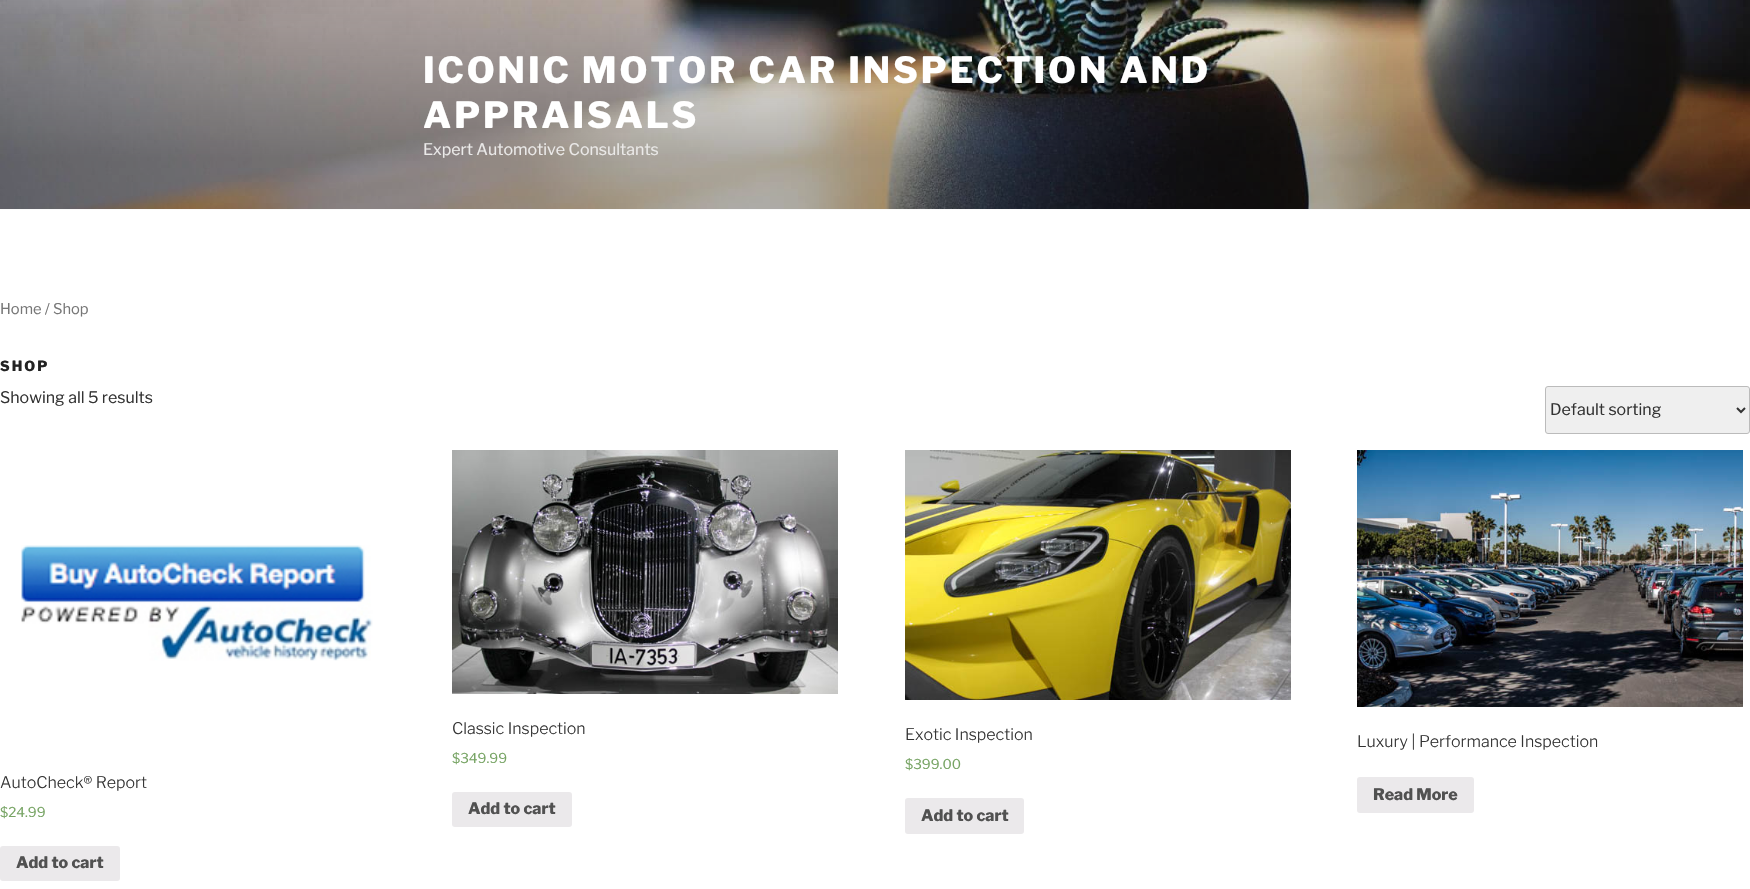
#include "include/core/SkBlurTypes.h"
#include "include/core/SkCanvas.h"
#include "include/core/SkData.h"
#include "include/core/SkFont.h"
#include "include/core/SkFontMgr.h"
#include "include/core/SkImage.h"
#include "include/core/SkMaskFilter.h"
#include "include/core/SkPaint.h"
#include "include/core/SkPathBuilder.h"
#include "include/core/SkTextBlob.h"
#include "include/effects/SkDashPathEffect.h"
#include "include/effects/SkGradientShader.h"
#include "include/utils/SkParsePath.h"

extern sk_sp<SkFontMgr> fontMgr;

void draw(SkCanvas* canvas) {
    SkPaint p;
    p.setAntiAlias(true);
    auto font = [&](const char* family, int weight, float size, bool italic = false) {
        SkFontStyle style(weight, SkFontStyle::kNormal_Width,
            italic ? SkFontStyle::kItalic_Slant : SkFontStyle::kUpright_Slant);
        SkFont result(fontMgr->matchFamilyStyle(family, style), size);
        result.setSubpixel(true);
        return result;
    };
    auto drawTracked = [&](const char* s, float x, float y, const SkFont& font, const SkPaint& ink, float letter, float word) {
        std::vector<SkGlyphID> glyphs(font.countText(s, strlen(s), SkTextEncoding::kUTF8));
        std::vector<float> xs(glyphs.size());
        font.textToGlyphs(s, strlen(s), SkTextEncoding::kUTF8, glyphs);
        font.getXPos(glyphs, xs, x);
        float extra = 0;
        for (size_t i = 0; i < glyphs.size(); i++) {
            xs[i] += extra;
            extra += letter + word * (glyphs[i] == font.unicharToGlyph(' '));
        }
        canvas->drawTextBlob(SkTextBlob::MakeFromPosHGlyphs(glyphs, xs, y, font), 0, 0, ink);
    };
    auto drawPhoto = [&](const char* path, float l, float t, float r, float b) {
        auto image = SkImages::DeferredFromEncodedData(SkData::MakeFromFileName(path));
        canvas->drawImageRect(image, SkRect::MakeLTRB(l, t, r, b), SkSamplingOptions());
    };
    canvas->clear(0xFFFFFFFF);
    p.setColor(0xFFFAFAFA);
    canvas->drawRect(SkRect::MakeLTRB(0, 209, 1750, 210), p);
    drawPhoto("media/1.png", 0, 0, 1750, 209);
    auto font1 = font("Libre Franklin", 800, 36);
    p.setColor(0xFFFFFFFF);
    drawTracked("ICONIC MOTOR CAR INSPECTION AND", 423, 83, font1, p, 2.9f, 0);
    drawTracked("APPRAISALS", 423, 128, font1, p, 2.9f, 0);
    auto font2 = font("Libre Franklin", 400, 16);
    p.setColor(0xFFEBEAE9);
    canvas->drawString("Expert Automotive Consultants", 423, 155, font2, p);
    auto font3 = font("Libre Franklin", 400, 14.75f);
    p.setColor(0xFF777777);
    canvas->drawString("Home / Shop", 0, 314, font3, p);
    auto font4 = font("Libre Franklin", 800, 14);
    p.setColor(0xFF222222);
    drawTracked("SHOP", 0, 371, font4, p, 2, 0);
    p.setColor(0xFF333333);
    canvas->drawString("Showing all 5 results", 0, 403, font2, p);
    p.setColor(0xFFEFEFEF);
    canvas->drawRoundRect(SkRect::MakeLTRB(1545.5f, 386.5f, 1749.5f, 433.5f), 2.5f, 2.5f, p);
    p.setStyle(SkPaint::kStroke_Style);
    p.setStrokeWidth(1);
    p.setColor(0xFFBBBBBB);
    canvas->drawRoundRect(SkRect::MakeLTRB(1545.5f, 386.5f, 1749.5f, 433.5f), 2.5f, 2.5f, p);
    p.setStrokeWidth(2);
    p.setColor(0xFF333333);
    canvas->drawPath(SkPathBuilder().moveTo(1737, 408).lineTo(1741, 412).lineTo(1745, 408).detach(), p);
    p.setStyle(SkPaint::kFill_Style);
    canvas->drawString("Default sorting", 1550, 415, font2, p);
    drawPhoto("media/2.png", 452, 450, 838, 694);
    auto font5 = font("Libre Franklin", 300, 16);
    canvas->drawString("Classic Inspection", 452, 734, font5, p);
    auto font6 = font("Libre Franklin", 400, 13.5f);
    p.setColor(0xFF77A464);
    canvas->drawString("$349.99", 452, 763, font6, p);
    p.setColor(0xFFEBE9EB);
    canvas->drawRoundRect(SkRect::MakeLTRB(452, 792, 572, 827), 3, 3, p);
    auto font7 = font("Libre Franklin", 800, 16);
    p.setColor(0xFF515151);
    canvas->drawString("Add to cart", 468, 814, font7, p);
    drawPhoto("media/3.png", 905, 450, 1291, 700);
    p.setColor(0xFF333333);
    canvas->drawString("Exotic Inspection", 905, 740, font5, p);
    p.setColor(0xFF77A464);
    canvas->drawString("$399.00", 905, 769, font6, p);
    p.setColor(0xFFEBE9EB);
    canvas->drawRoundRect(SkRect::MakeLTRB(905, 798, 1024, 834), 3, 3, p);
    p.setColor(0xFF515151);
    canvas->drawString("Add to cart", 921, 821, font7, p);
    drawPhoto("media/4.png", 1357, 450, 1743, 707);
    p.setColor(0xFF333333);
    canvas->drawString("Luxury | Performance Inspection", 1357, 747, font5, p);
    p.setColor(0xFFEBE9EB);
    canvas->drawRoundRect(SkRect::MakeLTRB(1357, 777, 1474, 813), 3, 3, p);
    p.setColor(0xFF515151);
    canvas->drawString("Read More", 1373, 800, font7, p);
    drawPhoto("media/5.png", 21, 545, 373, 661);
    p.setColor(0xFF333333);
    canvas->drawString("AutoCheck® Report", 0, 788, font5, p);
    p.setColor(0xFF77A464);
    canvas->drawString("$24.99", 0, 817, font6, p);
    p.setColor(0xFFEBE9EB);
    canvas->drawRoundRect(SkRect::MakeLTRB(0, 846, 120, 881), 3, 3, p);
    p.setColor(0xFF515151);
    canvas->drawString("Add to cart", 16, 868, font7, p);
}
